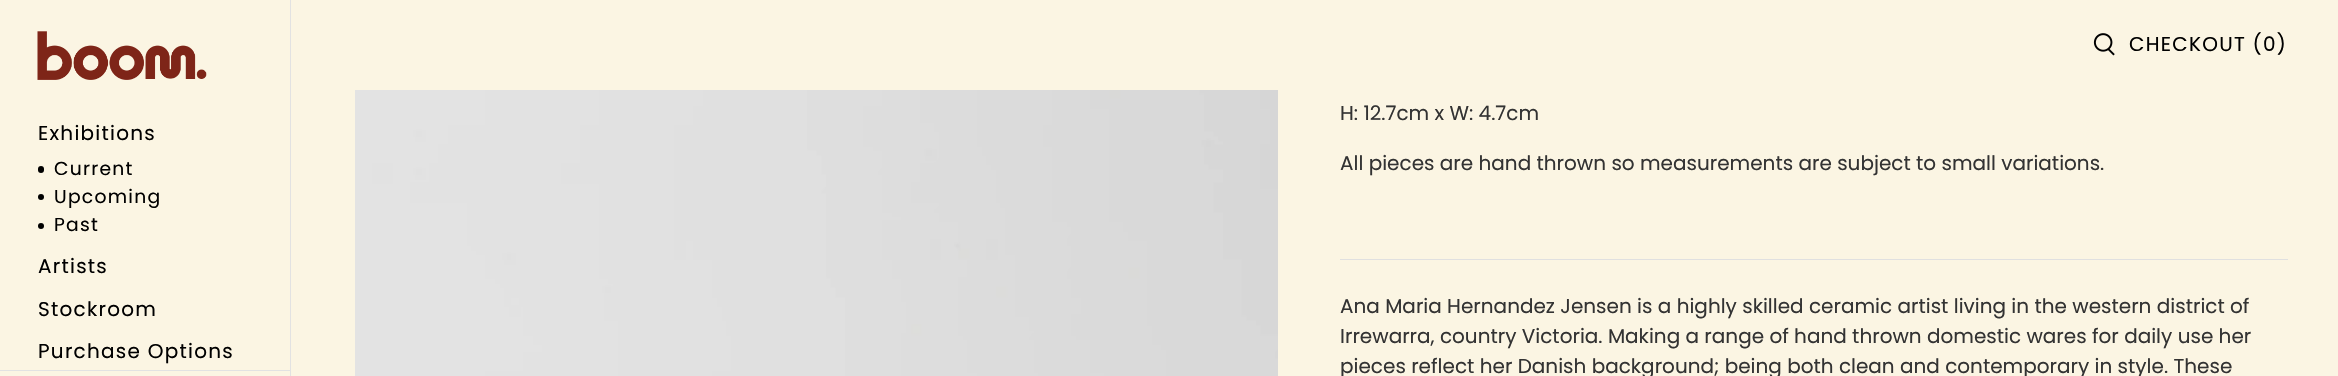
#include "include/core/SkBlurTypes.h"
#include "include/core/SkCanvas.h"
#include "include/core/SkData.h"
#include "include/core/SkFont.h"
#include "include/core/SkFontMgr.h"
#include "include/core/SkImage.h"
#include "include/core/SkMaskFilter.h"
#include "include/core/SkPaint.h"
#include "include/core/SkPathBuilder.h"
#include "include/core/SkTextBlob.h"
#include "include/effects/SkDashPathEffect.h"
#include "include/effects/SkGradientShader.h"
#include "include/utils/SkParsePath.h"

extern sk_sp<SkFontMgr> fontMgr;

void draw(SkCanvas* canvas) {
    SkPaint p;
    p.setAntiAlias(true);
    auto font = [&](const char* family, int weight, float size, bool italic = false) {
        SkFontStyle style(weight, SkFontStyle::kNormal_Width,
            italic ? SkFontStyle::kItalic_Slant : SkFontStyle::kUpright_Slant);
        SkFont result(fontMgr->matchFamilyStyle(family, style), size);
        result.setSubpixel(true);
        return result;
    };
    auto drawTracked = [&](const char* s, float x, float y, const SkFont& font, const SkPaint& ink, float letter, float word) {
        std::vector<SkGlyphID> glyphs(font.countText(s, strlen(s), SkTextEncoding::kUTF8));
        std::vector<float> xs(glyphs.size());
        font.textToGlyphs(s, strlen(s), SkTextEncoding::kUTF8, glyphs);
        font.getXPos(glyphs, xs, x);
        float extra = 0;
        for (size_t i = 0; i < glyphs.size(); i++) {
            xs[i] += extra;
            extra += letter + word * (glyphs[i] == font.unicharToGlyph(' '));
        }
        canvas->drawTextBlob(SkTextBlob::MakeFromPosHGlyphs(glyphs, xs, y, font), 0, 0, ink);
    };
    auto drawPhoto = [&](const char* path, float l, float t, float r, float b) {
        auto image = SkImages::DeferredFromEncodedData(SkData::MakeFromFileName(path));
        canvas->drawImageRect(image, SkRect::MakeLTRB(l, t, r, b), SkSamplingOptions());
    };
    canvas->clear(0xFFFBF5E3);
    p.setColor(0xFFE2E2E2);
    canvas->drawRect(SkRect::MakeLTRB(290, 0, 291, 376), p);
    drawPhoto("media/1.png", 37, 31, 207, 80);
    auto font1 = font("Poppins", 400, 20);
    p.setColor(0xFF000000);
    drawTracked("Exhibitions", 38, 140, font1, p, 1.25f, 0);
    canvas->drawRoundRect(SkRect::MakeLTRB(38, 166, 44, 173), 3, 3, p);
    auto font2 = font("Poppins", 400, 18.75f);
    drawTracked("Current", 54, 175, font2, p, 1.25f, 0);
    canvas->drawCircle(41, 197, 3, p);
    drawTracked("Upcoming", 54, 203, font2, p, 1.25f, 0);
    canvas->drawCircle(41, 226, 3, p);
    drawTracked("Past", 54, 231, font2, p, 1.25f, 0);
    {
        const struct { const char* s; float x, y; } items[] = {
            {"Artists", 38, 273},
            {"Stockroom", 38, 316},
            {"Purchase Options", 38, 358},
        };
        for (auto [s, x, y] : items) {
            drawTracked(s, x, y, font1, p, 1.25f, 0);
        }
    }
    p.setColor(0xFFE2E2E2);
    canvas->drawRect(SkRect::MakeLTRB(0, 370, 290, 371), p);
    drawPhoto("media/2.png", 2093, 33, 2115, 56);
    p.setColor(0xFF000000);
    drawTracked("CHECKOUT (0)", 2129, 51, font1, p, 1.25f, 0);
    drawPhoto("media/3.png", 355, 90, 1278, 376);
    p.setColor(0xFF333333);
    canvas->drawString("H: 12.7cm x W: 4.7cm", 1340, 120, font1, p);
    canvas->drawString("All pieces are hand thrown so measurements are subject to small variations.", 1340, 170, font1, p);
    p.setColor(0xFFE0E0E0);
    canvas->drawRect(SkRect::MakeLTRB(1340, 259, 2288, 260), p);
    p.setColor(0xFF333333);
    {
        const struct { const char* s; float x, y; } items[] = {
            {"Ana Maria Hernandez Jensen is a highly skilled ceramic artist living in the western district of", 1340, 313},
            {"Irrewarra, country Victoria. Making a range of hand thrown domestic wares for daily use her", 1340, 343},
            {"pieces reflect her Danish background; being both clean and contemporary in style. These", 1340, 373},
        };
        for (auto [s, x, y] : items) {
            canvas->drawString(s, x, y, font1, p);
        }
    }
}
